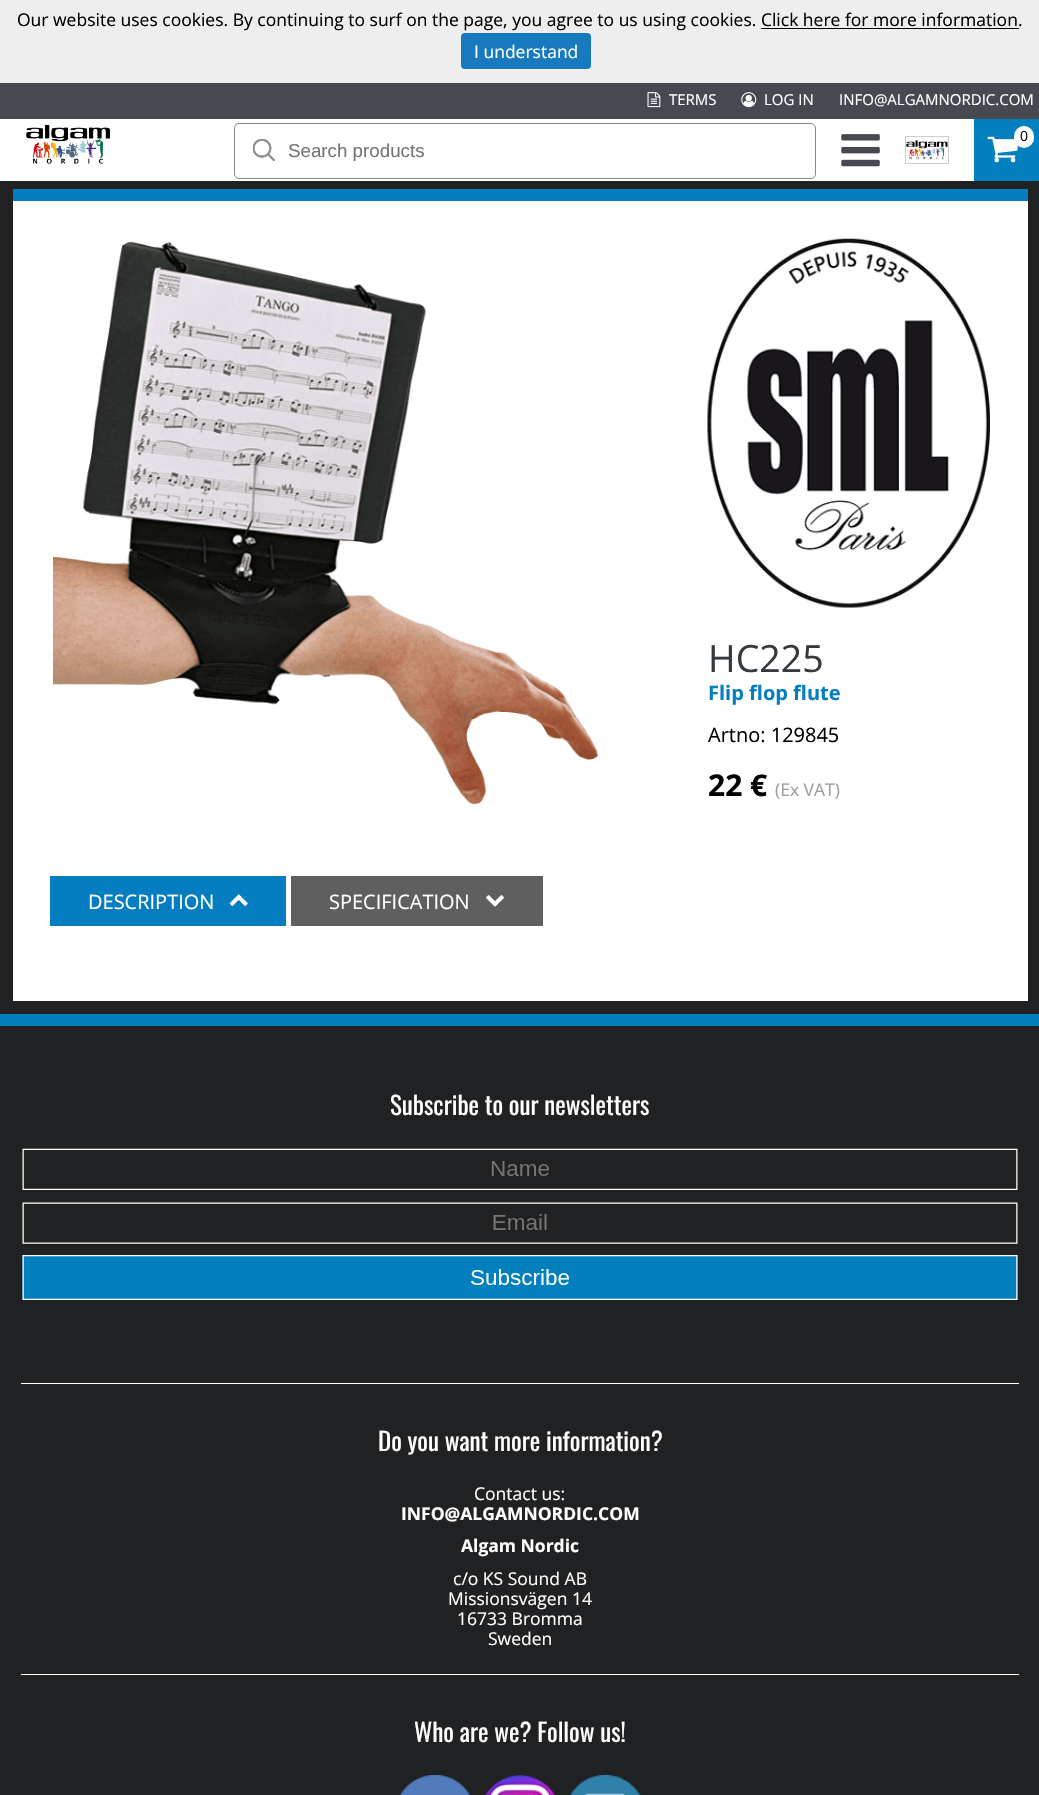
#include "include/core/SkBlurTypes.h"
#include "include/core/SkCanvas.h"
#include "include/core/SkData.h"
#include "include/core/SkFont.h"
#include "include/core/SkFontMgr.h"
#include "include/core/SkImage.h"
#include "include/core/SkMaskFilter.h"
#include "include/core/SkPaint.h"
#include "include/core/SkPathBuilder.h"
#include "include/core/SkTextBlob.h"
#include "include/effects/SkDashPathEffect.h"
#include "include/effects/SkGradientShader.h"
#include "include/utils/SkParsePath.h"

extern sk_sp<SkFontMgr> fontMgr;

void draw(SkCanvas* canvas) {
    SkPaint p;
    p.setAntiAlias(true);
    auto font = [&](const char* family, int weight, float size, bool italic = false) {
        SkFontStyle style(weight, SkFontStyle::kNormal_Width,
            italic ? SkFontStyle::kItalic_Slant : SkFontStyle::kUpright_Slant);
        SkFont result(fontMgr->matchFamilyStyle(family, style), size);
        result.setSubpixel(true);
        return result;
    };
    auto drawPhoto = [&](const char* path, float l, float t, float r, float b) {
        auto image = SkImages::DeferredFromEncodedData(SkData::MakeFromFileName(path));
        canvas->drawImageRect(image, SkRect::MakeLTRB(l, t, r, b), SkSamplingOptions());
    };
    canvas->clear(0xFF202123);
    p.setColor(0xFFEEEEEE);
    canvas->drawRect(SkRect::MakeLTRB(0, 0, 1039, 83), p);
    auto font1 = font("Open Sans", 400, 17.5f);
    p.setColor(0xFF000000);
    canvas->drawString("Our website uses cookies. By continuing to surf on the page, you agree to us using cookies. Click here for more information.", 17, 26, font1, p);
    canvas->drawRect(SkRect::MakeLTRB(761, 28, 1019, 29), p);
    p.setColor(0xFF1779BE);
    canvas->drawRoundRect(SkRect::MakeLTRB(461, 33, 591, 69), 4, 4, p);
    p.setColor(0xFFFFFFFF);
    canvas->drawString("I understand", 474, 58, font1, p);
    p.setColor(0xFF464950);
    canvas->drawRect(SkRect::MakeLTRB(0, 83, 1039, 119), p);
    drawPhoto("media/1.png", 647, 92, 661, 108);
    auto font2 = font("Open Sans", 400, 15);
    p.setColor(0xFFFFFFFF);
    canvas->drawString("TERMS", 669, 105, font2, p);
    drawPhoto("media/2.png", 741, 92, 757, 108);
    canvas->drawString("LOG IN", 764, 105, font2, p);
    canvas->drawString("INFO@ALGAMNORDIC.COM", 839, 105, font2, p);
    canvas->drawRect(SkRect::MakeLTRB(0, 119, 974, 181), p);
    drawPhoto("media/3.png", 26, 125, 110, 164);
    p.setStyle(SkPaint::kStroke_Style);
    p.setStrokeWidth(1);
    p.setColor(0xFF878787);
    canvas->drawRoundRect(SkRect::MakeLTRB(234.5f, 123.5f, 815.5f, 178.5f), 4.5f, 4.5f, p);
    drawPhoto("media/4.png", 253, 139, 275, 161);
    auto font3 = font("Liberation Sans", 400, 18.75f);
    p.setStyle(SkPaint::kFill_Style);
    p.setColor(0xFF757575);
    canvas->drawString("Search products", 288, 157, font3, p);
    drawPhoto("media/5.png", 841, 134, 880, 167);
    p.setStyle(SkPaint::kStroke_Style);
    p.setColor(0xFFCCCCCC);
    canvas->drawRect(SkRect::MakeLTRB(905.5f, 136.5f, 948.5f, 163.5f), p);
    drawPhoto("media/6.png", 906, 140, 948, 160);
    p.setStyle(SkPaint::kFill_Style);
    p.setColor(0xFF0280BD);
    canvas->drawRect(SkRect::MakeLTRB(974, 119, 1039, 181), p);
    drawPhoto("media/7.png", 987, 136, 1018, 163);
    p.setColor(0xFFFFFFFF);
    canvas->drawRoundRect(SkRect::MakeLTRB(1014, 126, 1034, 148), 10, 10, p);
    auto font4 = font("Open Sans", 400, 14);
    p.setColor(0xFF000000);
    canvas->drawString("0", 1020, 141, font4, p);
    p.setColor(0xFFFFFFFF);
    canvas->drawRect(SkRect::MakeLTRB(13, 201, 1028, 1001), p);
    p.setColor(0xFF047EC1);
    canvas->drawRect(SkRect::MakeLTRB(13, 189, 1028, 201), p);
    drawPhoto("media/8.png", 53, 241, 598, 805);
    drawPhoto("media/9.png", 707, 238, 990, 608);
    auto font5 = font("Open Sans", 400, 37.5f);
    p.setColor(0xFF353A3E);
    canvas->drawString("HC225", 708, 672, font5, p);
    auto font6 = font("Open Sans", 700, 20);
    p.setColor(0xFF047EC1);
    canvas->drawString("Flip flop flute", 708, 700, font6, p);
    auto font7 = font("Open Sans", 400, 20);
    p.setColor(0xFF000000);
    canvas->drawString("Artno: 129845", 708, 742, font7, p);
    auto font8 = font("Open Sans", 700, 30);
    canvas->drawString("22 €", 708, 796, font8, p);
    p.setColor(0xFF9B9B9B);
    canvas->drawString("(Ex VAT)", 775, 796, font1, p);
    p.setColor(0xFF047EC1);
    canvas->drawRect(SkRect::MakeLTRB(50, 876, 286, 926), p);
    p.setColor(0xFFFFFFFF);
    canvas->drawString("DESCRIPTION", 88, 909, font7, p);
    drawPhoto("media/10.png", 229, 894, 248, 906);
    p.setColor(0xFF5F5F5F);
    canvas->drawRect(SkRect::MakeLTRB(291, 876, 543, 926), p);
    p.setColor(0xFFFFFFFF);
    canvas->drawString("SPECIFICATION", 329, 909, font7, p);
    drawPhoto("media/11.png", 486, 895, 504, 907);
    p.setColor(0xFF0280BD);
    canvas->drawRect(SkRect::MakeLTRB(0, 1014, 1039, 1026), p);
    p.setColor(0xFFFFFFFF);
    canvas->drawRect(SkRect::MakeLTRB(21, 1383, 1019, 1384), p);
    auto font9 = font("Oswald", 400, 25);
    canvas->drawString("Subscribe to our newsletters", 390, 1115, font9, p);
    drawPhoto("media/12.png", 22, 1148, 1018, 1300);
    canvas->drawRect(SkRect::MakeLTRB(21, 1674, 1019, 1675), p);
    canvas->drawString("Do you want more information?", 378, 1451, font9, p);
    canvas->drawString("Contact us:", 474, 1500, font1, p);
    auto font10 = font("Open Sans", 700, 17.5f);
    canvas->drawString("INFO@ALGAMNORDIC.COM", 401, 1520, font10, p);
    canvas->drawString("Algam Nordic", 461, 1552, font10, p);
    {
        const struct { const char* s; float x, y; } items[] = {
            {"c/o KS Sound AB", 453, 1585},
            {"Missionsvägen 14", 448, 1605},
            {"16733 Bromma", 457, 1625},
            {"Sweden", 488, 1645},
        };
        for (auto [s, x, y] : items) {
            canvas->drawString(s, x, y, font1, p);
        }
    }
    canvas->drawString("Who are we? Follow us!", 414, 1742, font9, p);
    drawPhoto("media/13.png", 399, 1775, 471, 1795);
    drawPhoto("media/14.png", 485, 1775, 556, 1795);
    drawPhoto("media/15.png", 570, 1775, 641, 1795);
}
